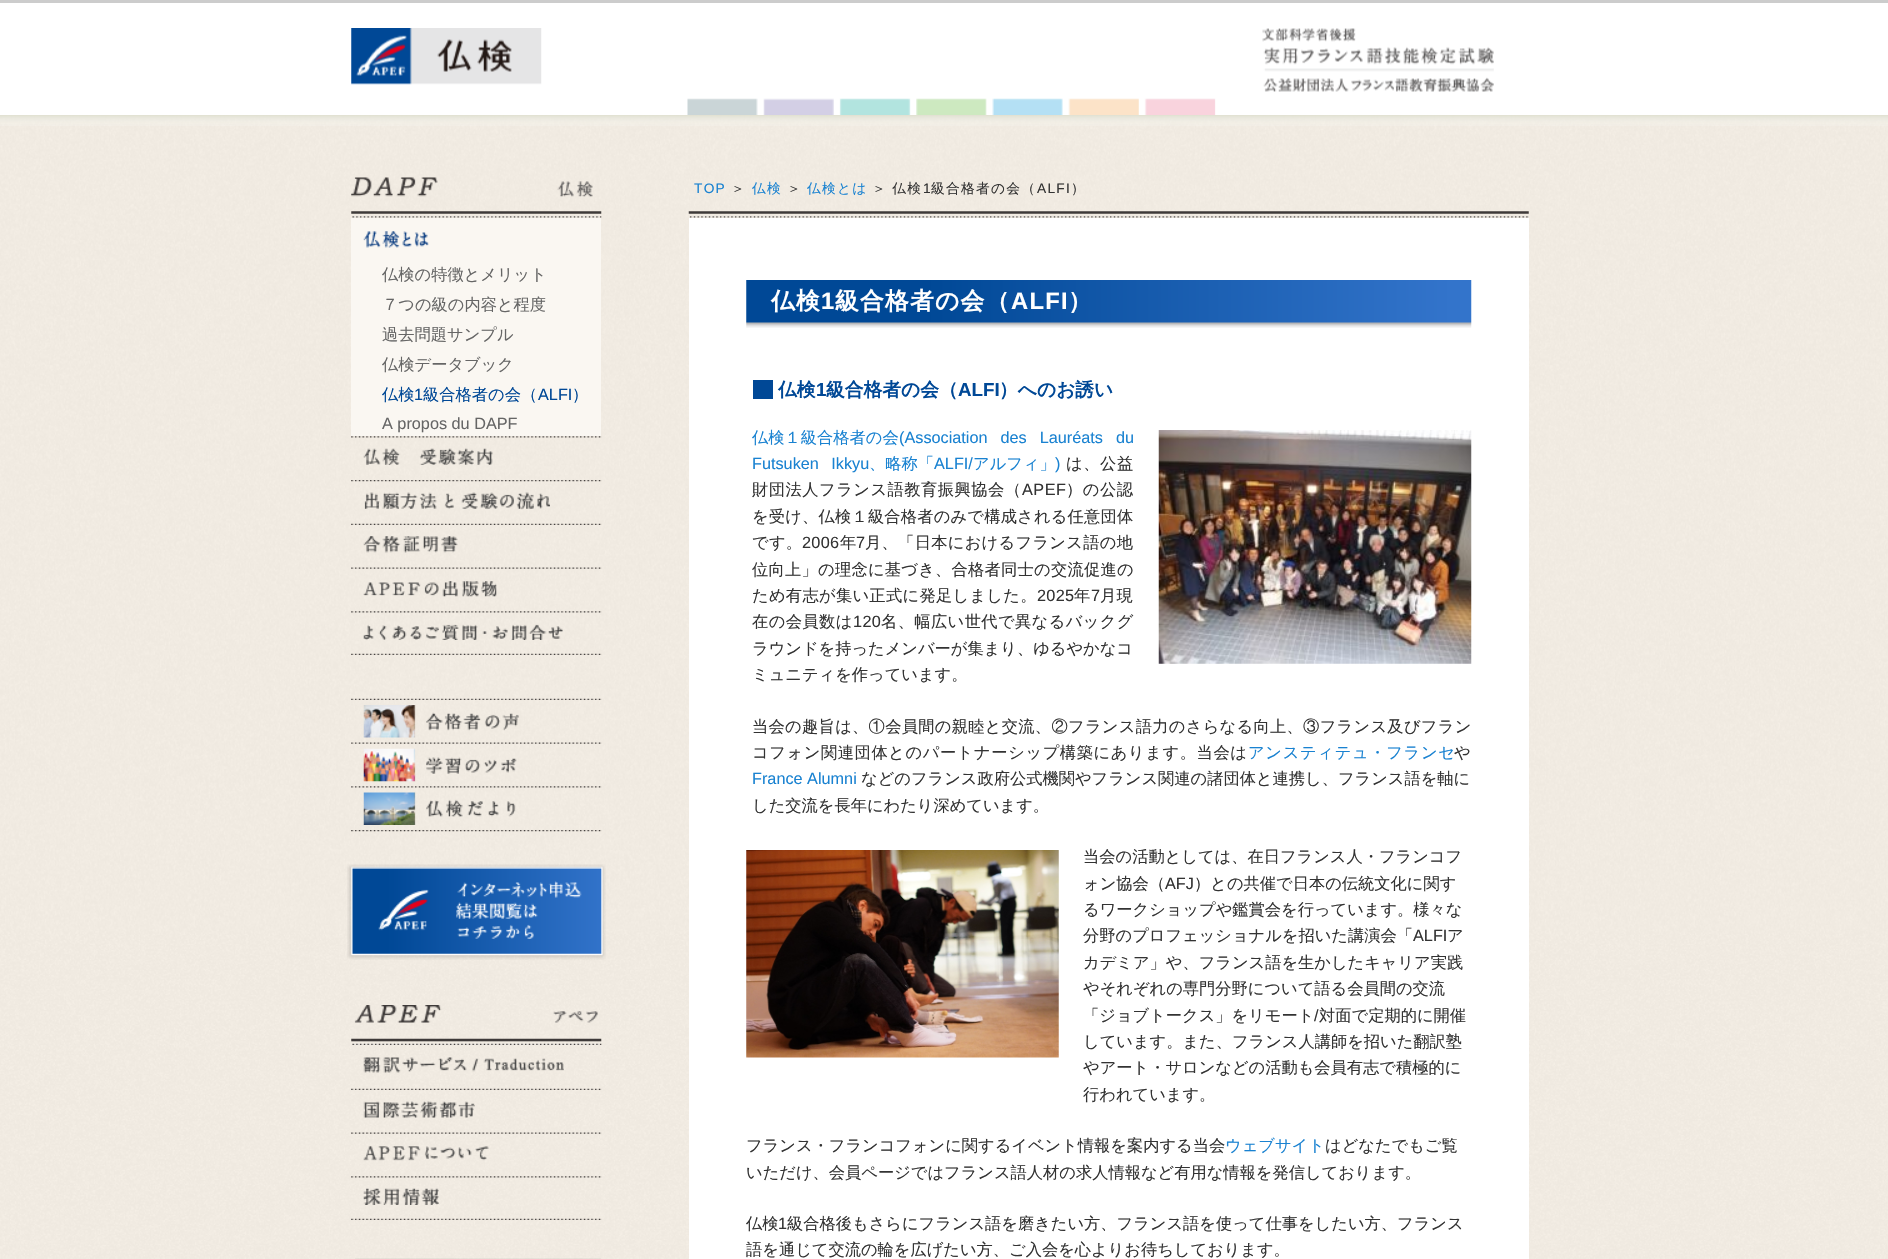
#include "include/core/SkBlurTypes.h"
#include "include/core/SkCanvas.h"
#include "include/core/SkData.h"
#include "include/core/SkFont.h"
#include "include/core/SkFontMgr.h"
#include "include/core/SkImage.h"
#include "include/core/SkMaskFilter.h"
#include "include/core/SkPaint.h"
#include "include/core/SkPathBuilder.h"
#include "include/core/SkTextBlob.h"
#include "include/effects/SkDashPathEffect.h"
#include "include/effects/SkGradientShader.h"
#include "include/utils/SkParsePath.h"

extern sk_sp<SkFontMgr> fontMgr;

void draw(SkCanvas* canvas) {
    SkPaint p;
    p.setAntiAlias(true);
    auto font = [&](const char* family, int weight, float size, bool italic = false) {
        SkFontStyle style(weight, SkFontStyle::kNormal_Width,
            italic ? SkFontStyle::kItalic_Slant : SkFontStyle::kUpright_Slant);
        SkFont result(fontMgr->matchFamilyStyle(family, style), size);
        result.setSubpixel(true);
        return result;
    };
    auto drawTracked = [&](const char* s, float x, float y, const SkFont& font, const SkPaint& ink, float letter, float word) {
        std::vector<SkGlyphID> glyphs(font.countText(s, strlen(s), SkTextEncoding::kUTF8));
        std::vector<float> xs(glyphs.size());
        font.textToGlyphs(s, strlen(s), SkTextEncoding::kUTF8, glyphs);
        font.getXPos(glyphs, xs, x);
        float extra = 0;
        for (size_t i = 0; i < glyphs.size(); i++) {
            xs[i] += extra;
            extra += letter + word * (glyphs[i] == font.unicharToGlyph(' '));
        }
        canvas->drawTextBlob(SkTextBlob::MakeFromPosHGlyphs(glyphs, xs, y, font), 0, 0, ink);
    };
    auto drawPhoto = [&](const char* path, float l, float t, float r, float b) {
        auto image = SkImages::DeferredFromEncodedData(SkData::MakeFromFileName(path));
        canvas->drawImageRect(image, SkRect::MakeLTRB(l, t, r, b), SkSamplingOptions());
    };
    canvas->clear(0xFFFFFFFF);
    drawPhoto("media/1.png", 0, 115, 1888, 1259);
    p.setColor(0xFFCCCCCC);
    canvas->drawRect(SkRect::MakeLTRB(0, 0, 1888, 3), p);
    drawPhoto("media/2.png", 687, 98, 1216, 115);
    drawPhoto("media/3.png", 351, 28, 542, 85);
    drawPhoto("media/4.png", 1262, 28, 1494, 92);
    drawPhoto("media/5.png", 0, 115, 1888, 126);
    drawPhoto("media/6.png", 351, 211, 602, 218);
    drawPhoto("media/7.png", 351, 177, 593, 197);
    drawPhoto("media/8.png", 351, 653, 602, 655);
    p.setColor(0xFFFAF7F2);
    canvas->drawRect(SkRect::MakeLTRB(351, 218, 601, 436), p);
    drawPhoto("media/9.png", 363, 231, 429, 248);
    auto font1 = font("WenQuanYi Zen Hei", 500, 16.25f);
    p.setColor(0xFF666666);
    {
        const struct { const char* s; float x, y; } items[] = {
            {"仏検の特徴とメリット", 382, 280},
            {"７つの級の内容と程度", 382, 310},
            {"過去問題サンプル", 382, 340},
            {"仏検データブック", 382, 370},
        };
        for (auto [s, x, y] : items) {
            canvas->drawString(s, x, y, font1, p);
        }
    }
    p.setColor(0xFF004896);
    canvas->drawString("仏検", 382, 400, font1, p);
    auto font2 = font("Liberation Sans", 400, 16.25f);
    canvas->drawString("1", 414, 400, font2, p);
    canvas->drawString("級合格者の会（", 423, 400, font1, p);
    canvas->drawString("ALFI", 538, 400, font2, p);
    canvas->drawString("）", 572, 400, font1, p);
    p.setColor(0xFF666666);
    canvas->drawString("A propos du DAPF", 382, 429, font2, p);
    drawPhoto("media/10.png", 351, 436, 602, 438);
    drawPhoto("media/11.png", 363, 448, 493, 465);
    drawPhoto("media/12.png", 351, 480, 602, 482);
    drawPhoto("media/13.png", 364, 492, 550, 510);
    drawPhoto("media/14.png", 351, 523, 602, 525);
    drawPhoto("media/15.png", 363, 536, 458, 553);
    drawPhoto("media/16.png", 351, 567, 602, 569);
    drawPhoto("media/17.png", 363, 581, 497, 597);
    drawPhoto("media/18.png", 351, 611, 602, 613);
    drawPhoto("media/19.png", 363, 624, 563, 640);
    drawPhoto("media/20.png", 351, 830, 602, 832);
    drawPhoto("media/21.png", 351, 698, 602, 700);
    drawPhoto("media/22.png", 363, 705, 519, 738);
    drawPhoto("media/23.png", 351, 742, 602, 744);
    drawPhoto("media/24.png", 363, 748, 517, 782);
    drawPhoto("media/25.png", 351, 786, 602, 788);
    drawPhoto("media/26.png", 363, 792, 516, 825);
    drawPhoto("media/27.png", 347, 864, 606, 960);
    drawPhoto("media/28.png", 351, 1038, 602, 1045);
    drawPhoto("media/29.png", 354, 1005, 598, 1023);
    drawPhoto("media/30.png", 351, 1218, 602, 1220);
    drawPhoto("media/31.png", 363, 1057, 564, 1073);
    drawPhoto("media/32.png", 351, 1088, 602, 1090);
    drawPhoto("media/33.png", 363, 1101, 475, 1118);
    drawPhoto("media/34.png", 351, 1132, 602, 1134);
    drawPhoto("media/35.png", 363, 1146, 489, 1161);
    drawPhoto("media/36.png", 351, 1176, 602, 1178);
    drawPhoto("media/37.png", 363, 1188, 439, 1205);
    drawPhoto("media/38.png", 355, 1258, 601, 1259);
    auto font3 = font("Liberation Sans", 400, 13.75f);
    p.setColor(0xFF1982D1);
    drawTracked("TOP", 694, 193, font3, p, 1.25f, 0);
    auto font4 = font("WenQuanYi Zen Hei", 500, 13.75f);
    p.setColor(0xFF333333);
    drawTracked("＞", 731, 193, font4, p, 1.25f, 0);
    p.setColor(0xFF1982D1);
    drawTracked("仏検", 752, 193, font4, p, 1.25f, 0);
    p.setColor(0xFF333333);
    drawTracked("＞", 787, 193, font4, p, 1.25f, 0);
    p.setColor(0xFF1982D1);
    drawTracked("仏検とは", 807, 193, font4, p, 1.25f, 0);
    p.setColor(0xFF333333);
    drawTracked("＞ 仏検", 872, 193, font4, p, 1.25f, 0);
    drawTracked("1", 923, 193, font3, p, 1.25f, 0);
    drawTracked("級合格者の会（", 931, 193, font4, p, 1.25f, 0);
    drawTracked("ALFI", 1037, 193, font3, p, 1.25f, 0);
    drawTracked("）", 1071, 193, font4, p, 1.25f, 0);
    drawPhoto("media/39.png", 688, 211, 1529, 218);
    p.setColor(0xFFFFFFFF);
    canvas->drawRect(SkRect::MakeLTRB(689, 218, 1529, 1259), p);
    drawPhoto("media/40.png", 746, 280, 1472, 328);
    auto font5 = font("WenQuanYi Zen Hei", 700, 23.75f);
    drawTracked("仏検", 771, 309, font5, p, 1.25f, 0);
    auto font6 = font("Liberation Sans", 700, 23.75f);
    drawTracked("1", 821, 309, font6, p, 1.25f, 0);
    drawTracked("級合格者の会（", 835, 309, font5, p, 1.25f, 0);
    drawTracked("ALFI", 1011, 309, font6, p, 1.25f, 0);
    drawTracked("）", 1068, 309, font5, p, 1.25f, 0);
    p.setColor(0xFF004896);
    canvas->drawRect(SkRect::MakeLTRB(753, 380, 773, 399), p);
    auto font7 = font("WenQuanYi Zen Hei", 700, 18.75f);
    canvas->drawString("仏検", 778, 396, font7, p);
    auto font8 = font("Liberation Sans", 700, 18.75f);
    canvas->drawString("1", 816, 396, font8, p);
    canvas->drawString("級合格者の会（", 826, 396, font7, p);
    canvas->drawString("ALFI", 958, 396, font8, p);
    canvas->drawString("）へのお誘い", 999, 396, font7, p);
    p.setColor(0xFF1982D1);
    canvas->drawString("仏検１級合格者の会", 752, 443, font1, p);
    drawTracked("(Association des Lauréats du", 899, 443, font2, p, 0, 8.5f);
    drawPhoto("media/41.png", 1158, 430, 1472, 664);
    drawTracked("Futsuken Ikkyu", 752, 469, font2, p, 0, 8);
    canvas->drawString("、略称「", 869, 469, font1, p);
    canvas->drawString("ALFI/", 934, 469, font2, p);
    canvas->drawString("アルフィ」", 973, 469, font1, p);
    canvas->drawString(")", 1055, 469, font2, p);
    p.setColor(0xFF333333);
    drawTracked("は、公益", 1066, 469, font1, p, 0.6f, 0);
    drawTracked("財団法人フランス語教育振興協会（", 752, 495, font1, p, 0.5f, 0);
    drawTracked("APEF", 1022, 495, font2, p, 0.5f, 0);
    drawTracked("）の公認", 1066, 495, font1, p, 0.5f, 0);
    drawTracked("を受け、仏検１級合格者のみで構成される任意団体", 752, 522, font1, p, 0.2f, 0);
    drawTracked("です。", 752, 548, font1, p, 0.3f, 0);
    drawTracked("2006", 802, 548, font2, p, 0.3f, 0);
    drawTracked("年", 840, 548, font1, p, 0.3f, 0);
    drawTracked("7", 856, 548, font2, p, 0.3f, 0);
    drawTracked("月、「日本におけるフランス語の地", 865, 548, font1, p, 0.3f, 0);
    drawTracked("位向上」の理念に基づき、合格者同士の交流促進の", 752, 575, font1, p, 0.25f, 0);
    drawTracked("ため有志が集い正式に発足しました。", 752, 601, font1, p, 0.3f, 0);
    drawTracked("2025", 1037, 601, font2, p, 0.3f, 0);
    drawTracked("年", 1074, 601, font1, p, 0.3f, 0);
    drawTracked("7", 1091, 601, font2, p, 0.3f, 0);
    drawTracked("月現", 1100, 601, font1, p, 0.3f, 0);
    drawTracked("在の会員数は", 752, 627, font1, p, 0.4f, 0);
    drawTracked("120", 853, 627, font2, p, 0.4f, 0);
    drawTracked("名、幅広い世代で異なるバックグ", 881, 627, font1, p, 0.4f, 0);
    canvas->drawString("ラウンドを持ったメンバーが集まり、ゆるやかなコ", 752, 654, font1, p);
    canvas->drawString("ミュニティを作っています。", 752, 680, font1, p);
    drawTracked("当会の趣旨は、①会員間の親睦と交流、②フランス語力のさらなる向上、③フランス及びフラン", 752, 732, font1, p, 0.3f, 0);
    drawTracked("コフォン関連団体とのパートナーシップ構築にあります。当会は", 752, 758, font1, p, 0.6f, 0);
    p.setColor(0xFF1982D1);
    drawTracked("アンスティテュ・フランセ", 1248, 758, font1, p, 0.7f, 0);
    p.setColor(0xFF333333);
    canvas->drawString("や", 1454, 758, font1, p);
    p.setColor(0xFF1982D1);
    canvas->drawString("France Alumni", 752, 784, font2, p);
    p.setColor(0xFF333333);
    canvas->drawString("などのフランス政府公式機関やフランス関連の諸団体と連携し、フランス語を軸に", 861, 784, font1, p);
    canvas->drawString("した交流を長年にわたり深めています。", 752, 811, font1, p);
    drawPhoto("media/42.png", 746, 850, 1059, 1058);
    canvas->drawString("当会の活動としては、在日フランス人・フランコフ", 1083, 862, font1, p);
    canvas->drawString("ォン協会（", 1083, 889, font1, p);
    canvas->drawString("AFJ", 1165, 889, font2, p);
    {
        const struct { const char* s; float x, y; } items[] = {
            {"）との共催で日本の伝統文化に関す", 1194, 889},
            {"るワークショップや鑑賞会を行っています。様々な", 1083, 915},
            {"分野のプロフェッショナルを招いた講演会「", 1083, 941},
        };
        for (auto [s, x, y] : items) {
            canvas->drawString(s, x, y, font1, p);
        }
    }
    canvas->drawString("ALFI", 1413, 941, font2, p);
    {
        const struct { const char* s; float x, y; } items[] = {
            {"ア", 1447, 941},
            {"カデミア」や、フランス語を生かしたキャリア実践", 1083, 968},
            {"やそれぞれの専門分野について語る会員間の交流", 1083, 994},
            {"「ジョブトークス」をリモート", 1083, 1021},
        };
        for (auto [s, x, y] : items) {
            canvas->drawString(s, x, y, font1, p);
        }
    }
    canvas->drawString("/", 1314, 1021, font2, p);
    {
        const struct { const char* s; float x, y; } items[] = {
            {"対面で定期的に開催", 1319, 1021},
            {"しています。また、フランス人講師を招いた翻訳塾", 1083, 1047},
            {"やアート・サロンなどの活動も会員有志で積極的に", 1083, 1073},
            {"行われています。", 1083, 1100},
            {"フランス・フランコフォンに関するイベント情報を案内する当会", 746, 1151},
        };
        for (auto [s, x, y] : items) {
            canvas->drawString(s, x, y, font1, p);
        }
    }
    p.setColor(0xFF1982D1);
    canvas->drawString("ウェブサイト", 1225, 1151, font1, p);
    p.setColor(0xFF333333);
    {
        const struct { const char* s; float x, y; } items[] = {
            {"はどなたでもご覧", 1325, 1151},
            {"いただけ、会員ページではフランス語人材の求人情報など有用な情報を発信しております。", 746, 1178},
            {"仏検", 746, 1229},
        };
        for (auto [s, x, y] : items) {
            canvas->drawString(s, x, y, font1, p);
        }
    }
    canvas->drawString("1", 778, 1229, font2, p);
    canvas->drawString("級合格後もさらにフランス語を磨きたい方、フランス語を使って仕事をしたい方、フランス", 787, 1229, font1, p);
    canvas->drawString("語を通じて交流の輪を広げたい方、ご入会を心よりお待ちしております。", 746, 1255, font1, p);
}
